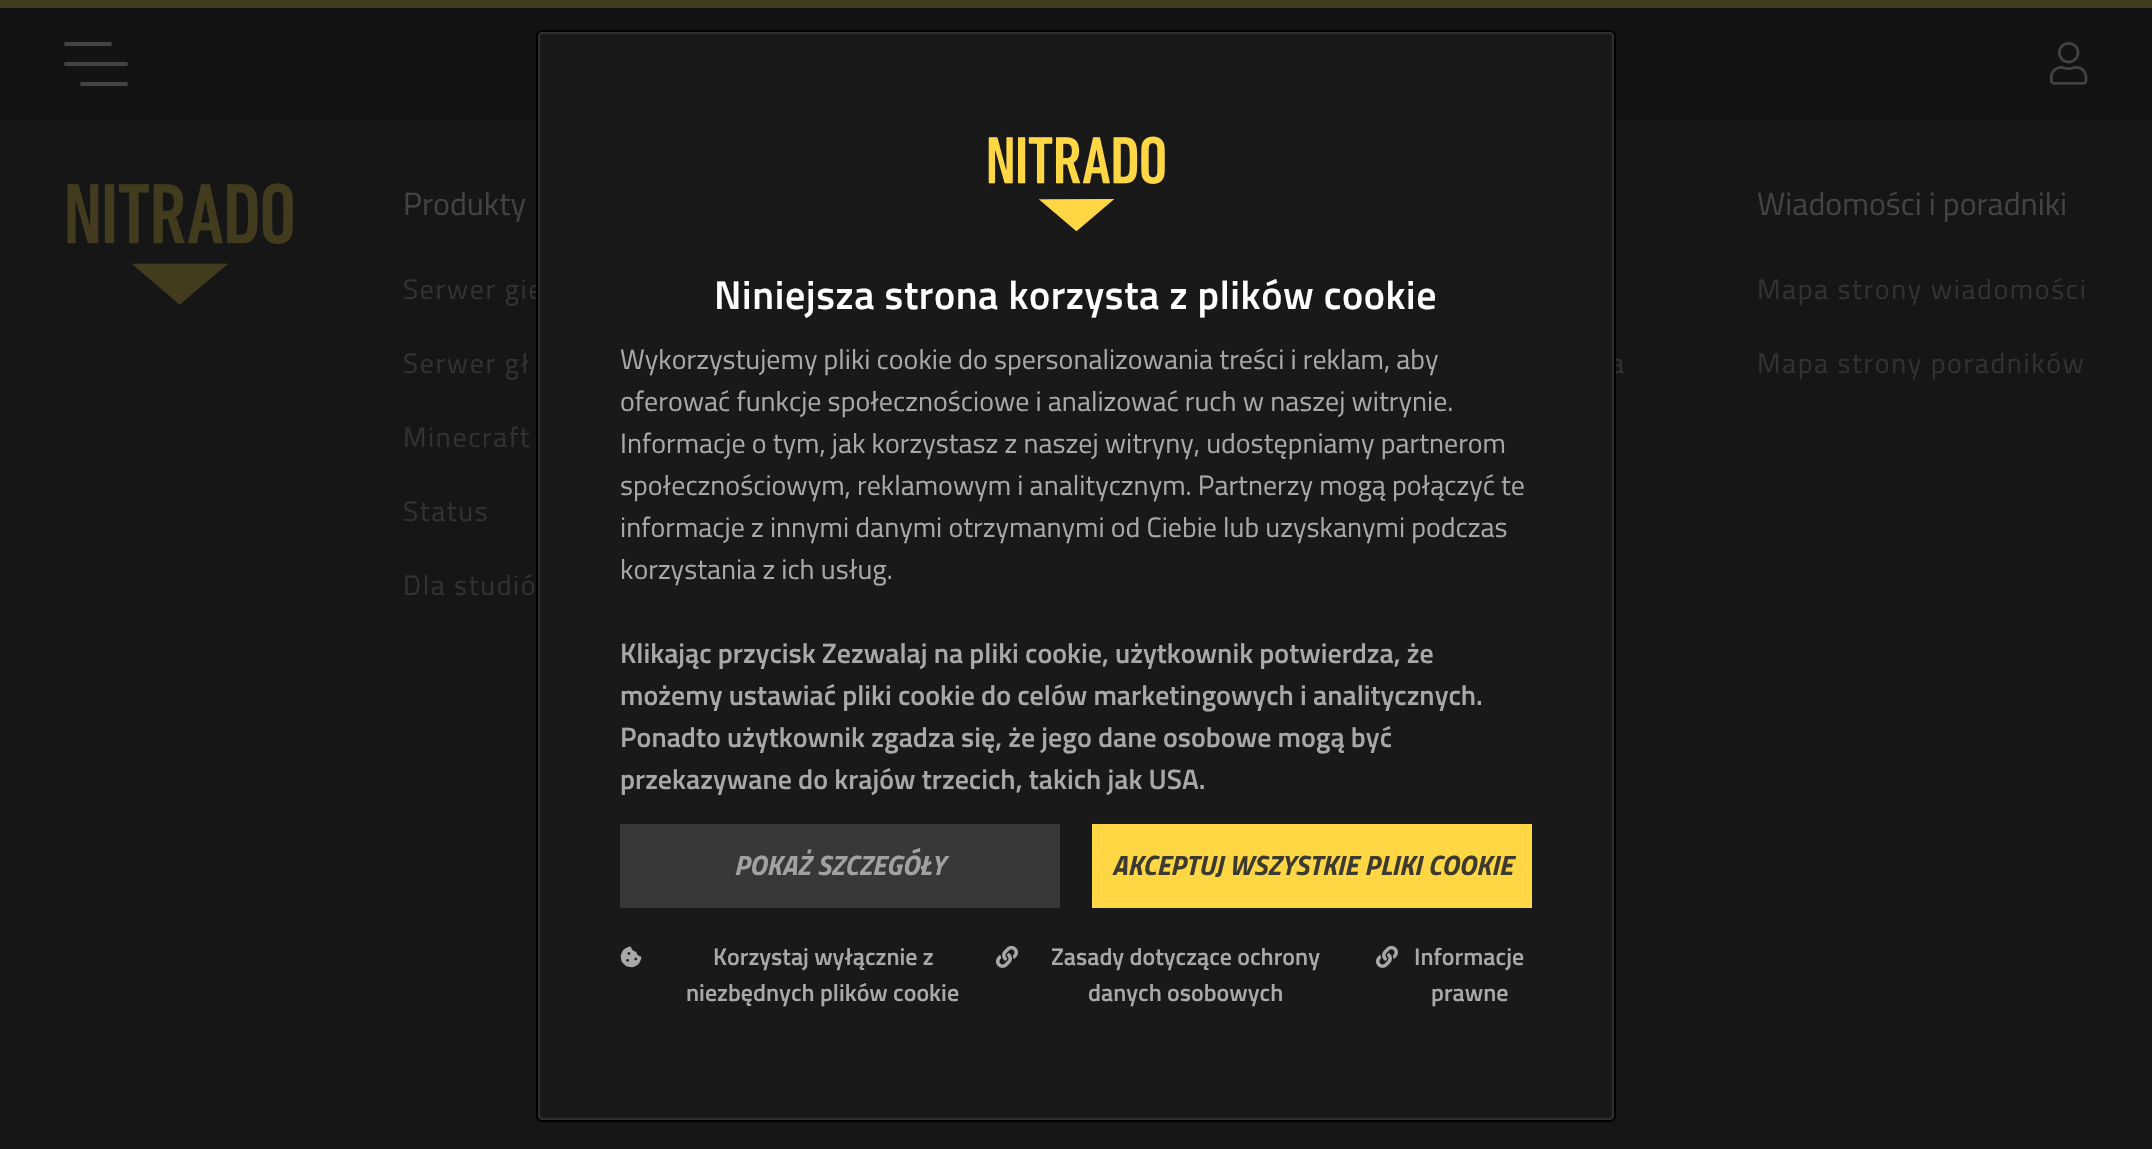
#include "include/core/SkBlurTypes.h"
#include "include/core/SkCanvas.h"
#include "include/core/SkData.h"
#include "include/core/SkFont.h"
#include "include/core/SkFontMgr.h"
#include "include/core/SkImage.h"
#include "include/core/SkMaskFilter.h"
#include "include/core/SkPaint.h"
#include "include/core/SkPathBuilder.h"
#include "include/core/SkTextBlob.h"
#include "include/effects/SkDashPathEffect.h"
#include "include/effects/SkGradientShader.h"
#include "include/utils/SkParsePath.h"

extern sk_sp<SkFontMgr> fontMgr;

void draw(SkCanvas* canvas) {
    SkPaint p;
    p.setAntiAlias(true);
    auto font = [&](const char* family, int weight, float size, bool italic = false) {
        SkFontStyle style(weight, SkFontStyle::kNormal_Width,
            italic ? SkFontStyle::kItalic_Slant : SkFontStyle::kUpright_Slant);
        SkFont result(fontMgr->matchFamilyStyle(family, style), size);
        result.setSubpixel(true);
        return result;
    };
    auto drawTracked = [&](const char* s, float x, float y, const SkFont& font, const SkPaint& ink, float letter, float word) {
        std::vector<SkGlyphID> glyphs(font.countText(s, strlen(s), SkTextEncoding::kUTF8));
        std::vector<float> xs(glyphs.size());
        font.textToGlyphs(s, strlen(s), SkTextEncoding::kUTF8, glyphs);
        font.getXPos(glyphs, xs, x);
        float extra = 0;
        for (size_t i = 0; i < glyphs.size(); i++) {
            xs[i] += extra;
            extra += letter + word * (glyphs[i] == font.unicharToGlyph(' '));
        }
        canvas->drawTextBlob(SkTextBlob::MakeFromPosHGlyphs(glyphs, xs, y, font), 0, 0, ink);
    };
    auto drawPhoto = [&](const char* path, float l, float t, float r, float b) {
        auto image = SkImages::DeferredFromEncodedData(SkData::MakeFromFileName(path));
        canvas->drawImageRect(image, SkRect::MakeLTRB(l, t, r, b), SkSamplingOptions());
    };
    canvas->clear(0xFF161616);
    p.setColor(0xFF433B1E);
    canvas->drawRect(SkRect::MakeLTRB(0, 0, 2152, 8), p);
    p.setColor(0xFF131313);
    canvas->drawRect(SkRect::MakeLTRB(0, 8, 2152, 120), p);
    p.setColor(0xFF434343);
    canvas->drawRoundRect(SkRect::MakeLTRB(64, 42, 112, 46), 2, 2, p);
    canvas->drawRoundRect(SkRect::MakeLTRB(64, 62, 128, 66), 2, 2, p);
    canvas->drawRoundRect(SkRect::MakeLTRB(80, 82, 128, 86), 2, 2, p);
    drawPhoto("media/1.png", 2050, 42, 2088, 85);
    drawPhoto("media/2.png", 67, 183, 293, 305);
    auto font1 = font("Titillium Web", 400, 32);
    canvas->drawString("Produkty", 403, 215, font1, p);
    auto font2 = font("Titillium Web", 400, 28);
    p.setColor(0xFF323232);
    {
        const struct { const char* s; float x, y; } items[] = {
            {"Serwer gie", 403, 299},
            {"Serwer gł", 403, 373},
            {"Minecraft", 403, 447},
            {"Status", 403, 521},
            {"Dla studió", 403, 595},
            {"a", 1610, 373},
        };
        for (auto [s, x, y] : items) {
            drawTracked(s, x, y, font2, p, 1.6f, 0);
        }
    }
    p.setColor(0xFF434343);
    canvas->drawString("Wiadomości i poradniki", 1757, 215, font1, p);
    p.setColor(0xFF323232);
    drawTracked("Mapa strony wiadomości", 1757, 299, font2, p, 1.6f, 0);
    drawTracked("Mapa strony poradników", 1757, 373, font2, p, 1.6f, 0);
    p.setColor(0xFF191919);
    canvas->drawRoundRect(SkRect::MakeLTRB(539, 33, 1613, 1119), 3, 3, p);
    p.setStyle(SkPaint::kStroke_Style);
    p.setStrokeWidth(2);
    p.setColor(0xFF2F2F2F);
    canvas->drawRoundRect(SkRect::MakeLTRB(539, 33, 1613, 1119), 3, 3, p);
    p.setStyle(SkPaint::kFill_Style);
    p.setColor(0xFF383838);
    canvas->drawRect(SkRect::MakeLTRB(620, 824, 1060, 908), p);
    p.setColor(0xFFFFD744);
    canvas->drawRect(SkRect::MakeLTRB(1092, 824, 1532, 908), p);
    p.setStyle(SkPaint::kStroke_Style);
    p.setColor(0xFF000000);
    canvas->drawRoundRect(SkRect::MakeLTRB(537, 31, 1615, 1121), 5, 5, p);
    drawPhoto("media/3.png", 988, 136, 1165, 232);
    auto font3 = font("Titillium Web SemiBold", 600, 40);
    p.setStyle(SkPaint::kFill_Style);
    p.setColor(0xFFFFFFFF);
    drawTracked("Niniejsza strona korzysta z plików cookie", 714, 309, font3, p, 0.6f, 0);
    p.setColor(0xFFA8A8A8);
    {
        const struct { const char* s; float x, y; } items[] = {
            {"Wykorzystujemy pliki cookie do spersonalizowania treści i reklam, aby", 620, 369},
            {"oferować funkcje społecznościowe i analizować ruch w naszej witrynie.", 620, 411},
            {"Informacje o tym, jak korzystasz z naszej witryny, udostępniamy partnerom", 620, 453},
            {"społecznościowym, reklamowym i analitycznym. Partnerzy mogą połączyć te", 620, 495},
            {"informacje z innymi danymi otrzymanymi od Ciebie lub uzyskanymi podczas", 620, 537},
            {"korzystania z ich usług.", 620, 579},
        };
        for (auto [s, x, y] : items) {
            canvas->drawString(s, x, y, font2, p);
        }
    }
    auto font4 = font("Titillium Web SemiBold", 600, 28);
    {
        const struct { const char* s; float x, y; } items[] = {
            {"Klikając przycisk Zezwalaj na pliki cookie, użytkownik potwierdza, że", 620, 663},
            {"możemy ustawiać pliki cookie do celów marketingowych i analitycznych.", 620, 705},
            {"Ponadto użytkownik zgadza się, że jego dane osobowe mogą być", 620, 747},
            {"przekazywane do krajów trzecich, takich jak USA.", 620, 789},
        };
        for (auto [s, x, y] : items) {
            canvas->drawString(s, x, y, font4, p);
        }
    }
    auto font5 = font("Titillium Web", 700, 28, true);
    p.setColor(0xFFA1A1A1);
    canvas->drawString("POKAŻ SZCZEGÓŁY", 734, 875, font5, p);
    p.setColor(0xFF3D3A30);
    canvas->drawString("AKCEPTUJ WSZYSTKIE PLIKI COOKIE", 1112, 875, font5, p);
    drawPhoto("media/4.png", 620, 946, 642, 968);
    auto font6 = font("Titillium Web SemiBold", 600, 24);
    p.setColor(0xFFA8A8A8);
    canvas->drawString("Korzystaj wyłącznie z", 713, 965, font6, p);
    canvas->drawString("niezbędnych plików cookie", 686, 1001, font6, p);
    drawPhoto("media/5.png", 996, 945, 1018, 968);
    canvas->drawString("Zasady dotyczące ochrony", 1051, 965, font6, p);
    canvas->drawString("danych osobowych", 1088, 1001, font6, p);
    drawPhoto("media/5.png", 1376, 945, 1398, 968);
    canvas->drawString("Informacje", 1414, 965, font6, p);
    canvas->drawString("prawne", 1431, 1001, font6, p);
}
